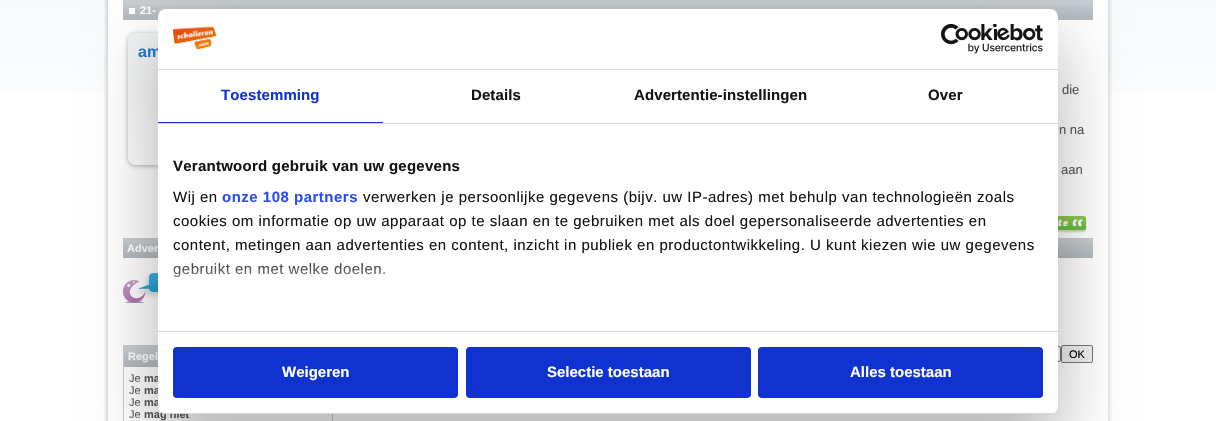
#include "include/core/SkBlurTypes.h"
#include "include/core/SkCanvas.h"
#include "include/core/SkData.h"
#include "include/core/SkFont.h"
#include "include/core/SkFontMgr.h"
#include "include/core/SkImage.h"
#include "include/core/SkMaskFilter.h"
#include "include/core/SkPaint.h"
#include "include/core/SkPathBuilder.h"
#include "include/core/SkTextBlob.h"
#include "include/effects/SkDashPathEffect.h"
#include "include/effects/SkGradientShader.h"
#include "include/utils/SkParsePath.h"

extern sk_sp<SkFontMgr> fontMgr;

void draw(SkCanvas* canvas) {
    SkPaint p;
    p.setAntiAlias(true);
    auto font = [&](const char* family, int weight, float size, bool italic = false) {
        SkFontStyle style(weight, SkFontStyle::kNormal_Width,
            italic ? SkFontStyle::kItalic_Slant : SkFontStyle::kUpright_Slant);
        SkFont result(fontMgr->matchFamilyStyle(family, style), size);
        result.setSubpixel(true);
        return result;
    };
    auto drawTracked = [&](const char* s, float x, float y, const SkFont& font, const SkPaint& ink, float letter, float word) {
        std::vector<SkGlyphID> glyphs(font.countText(s, strlen(s), SkTextEncoding::kUTF8));
        std::vector<float> xs(glyphs.size());
        font.textToGlyphs(s, strlen(s), SkTextEncoding::kUTF8, glyphs);
        font.getXPos(glyphs, xs, x);
        float extra = 0;
        for (size_t i = 0; i < glyphs.size(); i++) {
            xs[i] += extra;
            extra += letter + word * (glyphs[i] == font.unicharToGlyph(' '));
        }
        canvas->drawTextBlob(SkTextBlob::MakeFromPosHGlyphs(glyphs, xs, y, font), 0, 0, ink);
    };
    auto drawPhoto = [&](const char* path, float l, float t, float r, float b) {
        auto image = SkImages::DeferredFromEncodedData(SkData::MakeFromFileName(path));
        canvas->drawImageRect(image, SkRect::MakeLTRB(l, t, r, b), SkSamplingOptions());
    };
    canvas->clear(0xFFFFFFFF);
    drawPhoto("media/1.png", 0, 0, 1216, 93);
    drawPhoto("media/2.png", 104, 0, 1112, 421);
    p.setColor(0xFFC7CCD0);
    canvas->drawRect(SkRect::MakeLTRB(123, 0, 1093, 5), p);
    drawPhoto("media/3.png", 123, 5, 1093, 20);
    p.setColor(0xFFFFFFFF);
    canvas->drawRect(SkRect::MakeLTRB(129, 8, 135, 14), p);
    auto font1 = font("Liberation Sans", 700, 11);
    canvas->drawString("21-", 140, 14, font1, p);
    drawPhoto("media/4.png", 124, 30, 158, 170);
    auto font2 = font("Liberation Sans", 700, 16);
    p.setColor(0xFF2476E1);
    canvas->drawString("am", 138, 57, font2, p);
    auto font3 = font("Liberation Sans", 400, 13);
    p.setColor(0xFF5A5A5A);
    {
        const struct { const char* s; float x, y; } items[] = {
            {"die", 1062, 94},
            {"n na", 1059, 134},
            {"aan", 1061, 174},
        };
        for (auto [s, x, y] : items) {
            canvas->drawString(s, x, y, font3, p);
        }
    }
    drawPhoto("media/5.png", 1058, 216, 1087, 233);
    p.setColor(0xFFC7CCD0);
    canvas->drawRect(SkRect::MakeLTRB(123, 238, 1093, 243), p);
    drawPhoto("media/3.png", 123, 243, 1093, 258);
    p.setColor(0xFFFFFFFF);
    canvas->drawString("Adver", 127, 252, font1, p);
    drawPhoto("media/6.png", 123, 273, 158, 303);
    p.setStyle(SkPaint::kStroke_Style);
    p.setStrokeWidth(1);
    p.setColor(0xFFC7CCD0);
    canvas->drawRect(SkRect::MakeLTRB(123.5f, 345.5f, 332.5f, 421.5f), p);
    p.setStyle(SkPaint::kFill_Style);
    canvas->drawRect(SkRect::MakeLTRB(124, 346, 158, 352), p);
    drawPhoto("media/7.png", 124, 352, 158, 367);
    p.setColor(0xFFFFFFFF);
    canvas->drawString("Regel", 128, 360, font1, p);
    auto font4 = font("Liberation Sans", 400, 11);
    p.setColor(0xFF5A5A5A);
    canvas->drawString("Je", 129, 382, font4, p);
    canvas->drawString("ma", 144, 382, font1, p);
    canvas->drawString("Je", 129, 394, font4, p);
    canvas->drawString("ma", 144, 394, font1, p);
    canvas->drawString("Je", 129, 406, font4, p);
    canvas->drawString("ma", 144, 406, font1, p);
    canvas->drawString("Je", 129, 418, font4, p);
    canvas->drawString("mag niet", 144, 418, font1, p);
    p.setStyle(SkPaint::kStroke_Style);
    p.setColor(0xFF767676);
    canvas->drawRoundRect(SkRect::MakeLTRB(760.5f, 346.5f, 1060.5f, 361.5f), 1.5f, 1.5f, p);
    p.setStyle(SkPaint::kFill_Style);
    p.setColor(0xFFEFEFEF);
    canvas->drawRoundRect(SkRect::MakeLTRB(1061.5f, 345.5f, 1092.5f, 362.5f), 1.5f, 1.5f, p);
    p.setStyle(SkPaint::kStroke_Style);
    p.setColor(0xFF767676);
    canvas->drawRoundRect(SkRect::MakeLTRB(1061.5f, 345.5f, 1092.5f, 362.5f), 1.5f, 1.5f, p);
    p.setStyle(SkPaint::kFill_Style);
    p.setColor(0xFF000000);
    canvas->drawString("OK", 1069, 358, font4, p);
    p.setColor(0x4D000000);
    p.setMaskFilter(SkMaskFilter::MakeBlur(kNormal_SkBlurStyle, 34));
    canvas->drawRoundRect(SkRect::MakeLTRB(158, 41, 1058, 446), 8, 8, p);
    p.setMaskFilter(nullptr);
    p.setColor(0xFFFFFFFF);
    canvas->drawRoundRect(SkRect::MakeLTRB(158, 9, 1058, 414), 8, 8, p);
    p.setColor(0xFFD6D6D6);
    canvas->drawRect(SkRect::MakeLTRB(158, 69, 1058, 70), p);
    drawPhoto("media/8.png", 173, 26, 216, 50);
    drawPhoto("media/9.png", 941, 24, 1043, 54);
    canvas->drawRect(SkRect::MakeLTRB(158, 123, 1058, 124), p);
    p.setColor(0xFF1032CF);
    canvas->drawRect(SkRect::MakeLTRB(158, 122, 383, 123), p);
    auto font5 = font("Liberation Sans", 700, 15);
    drawTracked("Toestemming", 221, 100, font5, p, 0.1f, 0);
    p.setColor(0xFF141414);
    {
        const struct { const char* s; float x, y; } items[] = {
            {"Details", 471, 100},
            {"Advertentie-instellingen", 634, 100},
            {"Over", 928, 100},
        };
        for (auto [s, x, y] : items) {
            drawTracked(s, x, y, font5, p, 0.1f, 0);
        }
    }
    p.setColor(0xFFD6D6D6);
    canvas->drawRect(SkRect::MakeLTRB(158, 331, 1058, 332), p);
    p.setColor(0xFF141414);
    drawTracked("Verantwoord gebruik van uw gegevens", 173, 171, font5, p, 0.25f, 0);
    auto font6 = font("Liberation Sans", 400, 15);
    drawTracked("Wij en", 173, 202, font6, p, 0.5f, 0);
    p.setColor(0xFF2A4EEF);
    drawTracked("onze 108 partners", 222, 202, font5, p, 0.5f, 0);
    p.setColor(0xFF141414);
    {
        const struct { const char* s; float x, y; } items[] = {
            {"verwerken je persoonlijke gegevens (bijv. uw IP-adres) met behulp van technologieën zoals", 363, 202},
            {"cookies om informatie op uw apparaat op te slaan en te gebruiken met als doel gepersonaliseerde advertenties en", 173, 226},
            {"content, metingen aan advertenties en content, inzicht in publiek en productontwikkeling. U kunt kiezen wie uw gegevens", 173, 250},
            {"gebruikt en met welke doelen.", 173, 274},
        };
        for (auto [s, x, y] : items) {
            drawTracked(s, x, y, font6, p, 0.5f, 0);
        }
    }
    {
        const SkColor colors[] = {0xFFFFFFFF, 0xCCFFFFFF, 0x00FFFFFF};
        const float stops[] = {0, 0.5f, 1};
        const SkPoint ends[] = {{602, 331}, {602, 256}};
        p.setShader(SkGradientShader::MakeLinear(ends, colors, stops, 3, SkTileMode::kClamp));
        p.setAlpha(255);
    }
    canvas->drawRect(SkRect::MakeLTRB(173, 263, 385, 278), p);
    canvas->save();
    canvas->clipPath(SkPathBuilder().moveTo(166, 9).lineTo(1050, 9).cubicTo(1054.5f, 9, 1058, 12.5f, 1058, 17).lineTo(1058, 406).cubicTo(1058, 410.5f, 1054.5f, 414, 1050, 414).lineTo(166, 414).cubicTo(161.5f, 414, 158, 410.5f, 158, 406).lineTo(158, 17).cubicTo(158, 12.5f, 161.5f, 9, 166, 9).close().detach(), true);
    p.setShader(nullptr);
    p.setColor(0xFFD6D6D6);
    canvas->drawRect(SkRect::MakeLTRB(158, 413, 1058, 414), p);
    canvas->restore();
    p.setColor(0xFF1032CF);
    canvas->drawRoundRect(SkRect::MakeLTRB(174, 348, 457, 397), 3, 3, p);
    p.setStyle(SkPaint::kStroke_Style);
    p.setStrokeWidth(2);
    canvas->drawRoundRect(SkRect::MakeLTRB(174, 348, 457, 397), 3, 3, p);
    p.setStyle(SkPaint::kFill_Style);
    p.setColor(0xFFFFFFFF);
    canvas->drawString("Weigeren", 282, 377, font5, p);
    p.setColor(0xFF1032CF);
    canvas->drawRoundRect(SkRect::MakeLTRB(467, 348, 750, 397), 3, 3, p);
    p.setStyle(SkPaint::kStroke_Style);
    canvas->drawRoundRect(SkRect::MakeLTRB(467, 348, 750, 397), 3, 3, p);
    p.setStyle(SkPaint::kFill_Style);
    p.setColor(0xFFFFFFFF);
    canvas->drawString("Selectie toestaan", 547, 377, font5, p);
    p.setColor(0xFF1032CF);
    canvas->drawRoundRect(SkRect::MakeLTRB(759, 348, 1042, 397), 3, 3, p);
    p.setStyle(SkPaint::kStroke_Style);
    canvas->drawRoundRect(SkRect::MakeLTRB(759, 348, 1042, 397), 3, 3, p);
    p.setStyle(SkPaint::kFill_Style);
    p.setColor(0xFFFFFFFF);
    canvas->drawString("Alles toestaan", 850, 377, font5, p);
}
